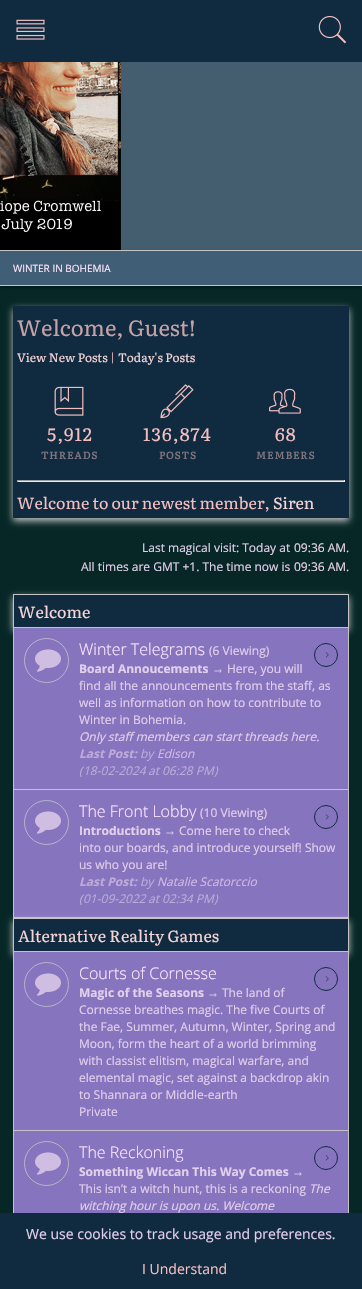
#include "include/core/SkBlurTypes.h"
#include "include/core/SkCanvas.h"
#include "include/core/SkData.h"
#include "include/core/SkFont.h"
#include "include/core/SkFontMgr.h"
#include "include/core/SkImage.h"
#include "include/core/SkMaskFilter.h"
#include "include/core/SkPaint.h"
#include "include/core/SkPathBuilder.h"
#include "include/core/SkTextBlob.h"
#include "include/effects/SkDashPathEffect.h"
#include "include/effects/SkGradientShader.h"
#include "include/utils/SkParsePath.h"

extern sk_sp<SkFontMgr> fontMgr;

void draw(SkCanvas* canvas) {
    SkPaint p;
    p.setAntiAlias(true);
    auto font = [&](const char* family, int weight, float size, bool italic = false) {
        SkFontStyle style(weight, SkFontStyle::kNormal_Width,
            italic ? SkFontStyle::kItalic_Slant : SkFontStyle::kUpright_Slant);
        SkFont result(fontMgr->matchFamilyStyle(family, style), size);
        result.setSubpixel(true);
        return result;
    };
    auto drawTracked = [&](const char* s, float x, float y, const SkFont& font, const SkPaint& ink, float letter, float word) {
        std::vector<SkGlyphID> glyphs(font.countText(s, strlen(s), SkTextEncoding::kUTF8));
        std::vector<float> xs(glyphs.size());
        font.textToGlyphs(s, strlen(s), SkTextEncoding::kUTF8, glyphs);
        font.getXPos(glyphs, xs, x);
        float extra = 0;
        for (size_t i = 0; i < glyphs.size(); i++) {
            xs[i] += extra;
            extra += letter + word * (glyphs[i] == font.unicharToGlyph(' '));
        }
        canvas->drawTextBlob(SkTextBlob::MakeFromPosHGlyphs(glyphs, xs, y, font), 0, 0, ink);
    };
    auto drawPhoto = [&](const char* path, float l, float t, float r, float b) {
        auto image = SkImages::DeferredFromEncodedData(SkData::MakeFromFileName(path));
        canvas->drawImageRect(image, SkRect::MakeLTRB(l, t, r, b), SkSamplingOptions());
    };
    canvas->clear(0xFF062726);
    p.setColor(0xFF102B3F);
    canvas->drawRect(SkRect::MakeLTRB(0, 0, 362, 62), p);
    drawPhoto("media/1.png", 16, 19, 45, 40);
    drawPhoto("media/2.png", 318, 15, 347, 44);
    drawPhoto("media/3.png", 0, 62, 362, 250);
    p.setColor(0x57000000);
    p.setMaskFilter(SkMaskFilter::MakeBlur(kNormal_SkBlurStyle, 2));
    canvas->drawRect(SkRect::MakeLTRB(0, 252, 362, 288), p);
    p.setMaskFilter(nullptr);
    {
        const struct { float l, t, r, b; SkColor color; } items[] = {
            {0, 251, 362, 285, 0xFF405E75},
            {0, 250, 362, 251, 0xFFC4C4C4},
            {0, 285, 362, 286, 0xFFC4C4C4},
        };
        for (auto [l, t, r, b, color] : items) {
            p.setColor(color);
            canvas->drawRect(SkRect::MakeLTRB(l, t, r, b), p);
        }
    }
    auto font1 = font("Open Sans", 400, 10);
    p.setColor(0xFFFFE8FD);
    canvas->drawString("WINTER IN BOHEMIA", 13, 272, font1, p);
    p.setColor(0xFFC4C4C4);
    p.setMaskFilter(SkMaskFilter::MakeBlur(kNormal_SkBlurStyle, 3.5f));
    canvas->drawRect(SkRect::MakeLTRB(13, 309, 349, 521), p);
    p.setMaskFilter(nullptr);
    p.setColor(0xFF102B3F);
    canvas->drawRect(SkRect::MakeLTRB(13, 306, 349, 518), p);
    auto font2 = font("Literata", 400, 22);
    p.setColor(0xFFC6A1A7);
    canvas->drawString("Welcome, Guest!", 17, 336, font2, p);
    auto font3 = font("Literata", 400, 12);
    p.setColor(0xFFF4D4D6);
    canvas->drawString("View New Posts", 17, 362, font3, p);
    p.setColor(0xFFF4BEC1);
    canvas->drawString("|", 110, 362, font3, p);
    p.setColor(0xFFF4D4D6);
    canvas->drawString("Today's Posts", 118, 362, font3, p);
    drawPhoto("media/4.png", 54, 386, 84, 416);
    auto font4 = font("Literata", 400, 18);
    p.setColor(0xFFF4BEC1);
    drawTracked("5,912", 47, 441, font4, p, 1, 0);
    auto font5 = font("Literata", 700, 10);
    p.setColor(0xFF827580);
    drawTracked("THREADS", 41, 459, font5, p, 1, 0);
    drawPhoto("media/5.png", 160, 384, 194, 419);
    p.setColor(0xFFF4BEC1);
    drawTracked("136,874", 143, 441, font4, p, 1, 0);
    p.setColor(0xFF827580);
    drawTracked("POSTS", 159, 459, font5, p, 1, 0);
    drawPhoto("media/6.png", 269, 388, 301, 414);
    p.setColor(0xFFF4BEC1);
    drawTracked("68", 275, 441, font4, p, 1, 0);
    p.setColor(0xFF827580);
    drawTracked("MEMBERS", 256, 459, font5, p, 1, 0);
    {
        const struct { float l, t, r, b; SkColor color; } items[] = {
            {17, 480, 345, 481, 0xFF9F9F9F},
            {344, 480, 345, 482, 0xFFEEEEEE},
            {17, 481, 345, 482, 0xFFEEEEEE},
            {17, 480, 18, 482, 0xFF9F9F9F},
        };
        for (auto [l, t, r, b, color] : items) {
            p.setColor(color);
            canvas->drawRect(SkRect::MakeLTRB(l, t, r, b), p);
        }
    }
    auto font6 = font("Literata", 400, 16);
    p.setColor(0xFFF4BEC1);
    canvas->drawString("Welcome to our newest member,", 17, 509, font6, p);
    p.setColor(0xFFF4D4D6);
    canvas->drawString("Siren", 273, 509, font6, p);
    auto font7 = font("Open Sans", 400, 12);
    p.setColor(0xFFE2CFEA);
    canvas->drawString("Last magical visit: Today at", 142, 552, font7, p);
    p.setColor(0xFFE8D3E6);
    canvas->drawString("09:36 AM", 294, 552, font7, p);
    p.setColor(0xFFE2CFEA);
    canvas->drawString(".", 346, 552, font7, p);
    canvas->drawString("All times are GMT +1. The time now is", 81, 571, font7, p);
    p.setColor(0xFFE8D3E6);
    canvas->drawString("09:36 AM", 294, 571, font7, p);
    p.setColor(0xFFE2CFEA);
    canvas->drawString(".", 346, 571, font7, p);
    p.setColor(0xFFC4C4C4);
    p.setMaskFilter(SkMaskFilter::MakeBlur(kNormal_SkBlurStyle, 3.5f));
    canvas->drawRect(SkRect::MakeLTRB(13, 597, 349, 631), p);
    p.setMaskFilter(nullptr);
    p.setColor(0xFF102B3F);
    canvas->drawRect(SkRect::MakeLTRB(13.5f, 594.5f, 348.5f, 627.5f), p);
    p.setStyle(SkPaint::kStroke_Style);
    p.setStrokeWidth(1);
    p.setColor(0xFFC4C4C4);
    canvas->drawRect(SkRect::MakeLTRB(13.5f, 594.5f, 348.5f, 627.5f), p);
    p.setStyle(SkPaint::kFill_Style);
    p.setColor(0xFFF4D4D6);
    canvas->drawString("Welcome", 18, 618, font6, p);
    {
        const struct { float l, t, r, b; SkColor color; } items[] = {
            {14, 628, 348, 789, 0xFF8674BF},
            {348, 628, 349, 918, 0xFFC4C4C4},
            {13, 789, 349, 790, 0xFFC4C4C4},
            {13, 628, 14, 790, 0xFFC4C4C4},
        };
        for (auto [l, t, r, b, color] : items) {
            p.setColor(color);
            canvas->drawRect(SkRect::MakeLTRB(l, t, r, b), p);
        }
    }
    p.setStyle(SkPaint::kStroke_Style);
    p.setColor(0xFFB8B4C3);
    canvas->drawCircle(46.5f, 660.5f, 22, p);
    drawPhoto("media/7.png", 35, 649, 61, 672);
    auto font8 = font("Open Sans", 300, 16);
    p.setStyle(SkPaint::kFill_Style);
    p.setColor(0xFFFFE8FD);
    canvas->drawString("Winter Telegrams", 79, 655, font8, p);
    p.setColor(0xFFE2CFEA);
    canvas->drawString("(6 Viewing)", 209, 655, font7, p);
    auto font9 = font("Open Sans", 700, 12);
    canvas->drawString("Board Annoucements", 79, 673, font9, p);
    auto font10 = font("Liberation Sans", 700, 12);
    canvas->drawString("→", 212, 673, font10, p);
    {
        const struct { const char* s; float x, y; } items[] = {
            {"Here, you will", 227, 673},
            {"find all the announcements from the staff, as", 79, 690},
            {"well as information on how to contribute to", 79, 707},
            {"Winter in Bohemia.", 79, 724},
        };
        for (auto [s, x, y] : items) {
            canvas->drawString(s, x, y, font7, p);
        }
    }
    auto font11 = font("Open Sans", 400, 12, true);
    canvas->drawString("Only staff members can start threads here.", 79, 741, font11, p);
    auto font12 = font("Open Sans", 700, 12, true);
    p.setColor(0xFFBDABD9);
    canvas->drawString("Last Post:", 79, 758, font12, p);
    canvas->drawString("by", 140, 758, font11, p);
    p.setColor(0xFFCFBAE4);
    canvas->drawString("Edison", 157, 758, font11, p);
    p.setColor(0xFFBDABD9);
    {
        const struct { const char* s; float x, y; } items[] = {
            {"(", 79, 775},
            {"18-02-2024", 83, 775},
            {"at", 148, 775},
            {"06:28 PM", 162, 775},
            {")", 214, 775},
        };
        for (auto [s, x, y] : items) {
            canvas->drawString(s, x, y, font11, p);
        }
    }
    p.setStyle(SkPaint::kStroke_Style);
    p.setColor(0xFF102B3F);
    canvas->drawCircle(326, 655, 11.5f, p);
    drawPhoto("media/8.png", 325, 652, 329, 658);
    p.setStyle(SkPaint::kFill_Style);
    {
        const struct { float l, t, r, b; SkColor color; } items[] = {
            {14, 790, 348, 917, 0xFF8674BF},
            {13, 917, 349, 918, 0xFFC4C4C4},
            {13, 790, 14, 918, 0xFFC4C4C4},
        };
        for (auto [l, t, r, b, color] : items) {
            p.setColor(color);
            canvas->drawRect(SkRect::MakeLTRB(l, t, r, b), p);
        }
    }
    p.setStyle(SkPaint::kStroke_Style);
    p.setColor(0xFFB8B4C3);
    canvas->drawCircle(46.5f, 822.5f, 22, p);
    drawPhoto("media/7.png", 35, 811, 61, 834);
    p.setStyle(SkPaint::kFill_Style);
    p.setColor(0xFFFFE8FD);
    canvas->drawString("The Front Lobby", 79, 817, font8, p);
    p.setColor(0xFFE2CFEA);
    canvas->drawString("(10 Viewing)", 200, 817, font7, p);
    canvas->drawString("Introductions", 79, 835, font9, p);
    canvas->drawString("→", 164, 835, font10, p);
    {
        const struct { const char* s; float x, y; } items[] = {
            {"Come here to check", 179, 835},
            {"into our boards, and introduce yourself! Show", 79, 852},
            {"us who you are!", 79, 869},
        };
        for (auto [s, x, y] : items) {
            canvas->drawString(s, x, y, font7, p);
        }
    }
    p.setColor(0xFFBDABD9);
    canvas->drawString("Last Post:", 79, 886, font12, p);
    canvas->drawString("by", 140, 886, font11, p);
    p.setColor(0xFFCFBAE4);
    canvas->drawString("Natalie Scatorccio", 157, 886, font11, p);
    p.setColor(0xFFBDABD9);
    {
        const struct { const char* s; float x, y; } items[] = {
            {"(", 79, 903},
            {"01-09-2022", 83, 903},
            {"at", 148, 903},
            {"02:34 PM", 162, 903},
            {")", 214, 903},
        };
        for (auto [s, x, y] : items) {
            canvas->drawString(s, x, y, font11, p);
        }
    }
    p.setStyle(SkPaint::kStroke_Style);
    p.setColor(0xFF102B3F);
    canvas->drawCircle(326, 817, 11.5f, p);
    drawPhoto("media/8.png", 325, 814, 329, 820);
    p.setStyle(SkPaint::kFill_Style);
    p.setColor(0xFFC4C4C4);
    p.setMaskFilter(SkMaskFilter::MakeBlur(kNormal_SkBlurStyle, 3.5f));
    canvas->drawRect(SkRect::MakeLTRB(13, 921, 349, 955), p);
    p.setMaskFilter(nullptr);
    p.setColor(0xFF102B3F);
    canvas->drawRect(SkRect::MakeLTRB(13.5f, 918.5f, 348.5f, 951.5f), p);
    p.setStyle(SkPaint::kStroke_Style);
    p.setColor(0xFFC4C4C4);
    canvas->drawRect(SkRect::MakeLTRB(13.5f, 918.5f, 348.5f, 951.5f), p);
    p.setStyle(SkPaint::kFill_Style);
    p.setColor(0xFFF4D4D6);
    canvas->drawString("Alternative Reality Games", 18, 942, font6, p);
    {
        const struct { float l, t, r, b; SkColor color; } items[] = {
            {14, 952, 348, 1130, 0xFF8674BF},
            {348, 952, 349, 1213, 0xFFC4C4C4},
            {13, 1130, 349, 1131, 0xFFC4C4C4},
            {13, 952, 14, 1213, 0xFFC4C4C4},
        };
        for (auto [l, t, r, b, color] : items) {
            p.setColor(color);
            canvas->drawRect(SkRect::MakeLTRB(l, t, r, b), p);
        }
    }
    p.setStyle(SkPaint::kStroke_Style);
    p.setColor(0xFFB8B4C3);
    canvas->drawCircle(46.5f, 984.5f, 22, p);
    drawPhoto("media/7.png", 35, 973, 61, 996);
    p.setStyle(SkPaint::kFill_Style);
    p.setColor(0xFFFFE8FD);
    canvas->drawString("Courts of Cornesse", 79, 979, font8, p);
    p.setColor(0xFFE2CFEA);
    canvas->drawString("Magic of the Seasons", 79, 997, font9, p);
    canvas->drawString("→", 207, 997, font10, p);
    {
        const struct { const char* s; float x, y; } items[] = {
            {"The land of", 222, 997},
            {"Cornesse breathes magic. The five Courts of", 79, 1014},
            {"the Fae, Summer, Autumn, Winter, Spring and", 79, 1031},
            {"Moon, form the heart of a world brimming", 79, 1048},
            {"with classist elitism, magical warfare, and", 79, 1065},
            {"elemental magic, set against a backdrop akin", 79, 1082},
            {"to Shannara or Middle-earth", 79, 1099},
            {"Private", 79, 1116},
        };
        for (auto [s, x, y] : items) {
            canvas->drawString(s, x, y, font7, p);
        }
    }
    p.setStyle(SkPaint::kStroke_Style);
    p.setColor(0xFF102B3F);
    canvas->drawCircle(326, 979, 11.5f, p);
    drawPhoto("media/8.png", 325, 976, 329, 982);
    p.setStyle(SkPaint::kFill_Style);
    p.setColor(0xFF8674BF);
    canvas->drawRect(SkRect::MakeLTRB(14, 1131, 348, 1213), p);
    p.setStyle(SkPaint::kStroke_Style);
    p.setColor(0xFFB8B4C3);
    canvas->drawCircle(46.5f, 1163.5f, 22, p);
    drawPhoto("media/7.png", 35, 1152, 61, 1175);
    p.setStyle(SkPaint::kFill_Style);
    p.setColor(0xFFFFE8FD);
    canvas->drawString("The Reckoning", 79, 1158, font8, p);
    p.setColor(0xFFE2CFEA);
    canvas->drawString("Something Wiccan This Way Comes", 79, 1176, font9, p);
    canvas->drawString("→", 292, 1176, font10, p);
    canvas->drawString("This isn’t a witch hunt, this is a reckoning", 79, 1193, font7, p);
    canvas->drawString("The", 309, 1193, font11, p);
    canvas->drawString("witching hour is upon us. Welcome", 79, 1210, font11, p);
    p.setStyle(SkPaint::kStroke_Style);
    p.setColor(0xFF102B3F);
    canvas->drawCircle(326, 1158, 11.5f, p);
    drawPhoto("media/8.png", 325, 1155, 329, 1161);
    p.setStyle(SkPaint::kFill_Style);
    canvas->drawRect(SkRect::MakeLTRB(0, 1213, 362, 1289), p);
    auto font13 = font("Open Sans", 400, 14);
    p.setColor(0xFFE2CFEA);
    canvas->drawString("We use cookies to track usage and preferences.", 26, 1239, font13, p);
    p.setColor(0xFFF4BEC1);
    canvas->drawString("I Understand", 142, 1274, font13, p);
}
